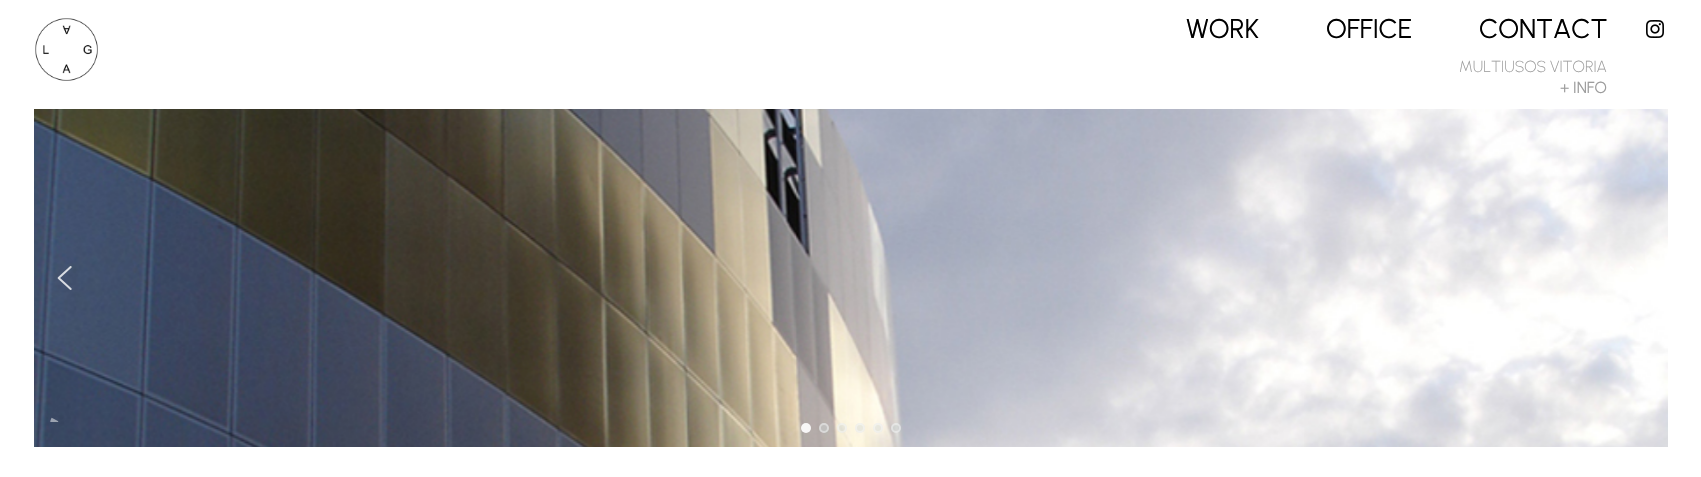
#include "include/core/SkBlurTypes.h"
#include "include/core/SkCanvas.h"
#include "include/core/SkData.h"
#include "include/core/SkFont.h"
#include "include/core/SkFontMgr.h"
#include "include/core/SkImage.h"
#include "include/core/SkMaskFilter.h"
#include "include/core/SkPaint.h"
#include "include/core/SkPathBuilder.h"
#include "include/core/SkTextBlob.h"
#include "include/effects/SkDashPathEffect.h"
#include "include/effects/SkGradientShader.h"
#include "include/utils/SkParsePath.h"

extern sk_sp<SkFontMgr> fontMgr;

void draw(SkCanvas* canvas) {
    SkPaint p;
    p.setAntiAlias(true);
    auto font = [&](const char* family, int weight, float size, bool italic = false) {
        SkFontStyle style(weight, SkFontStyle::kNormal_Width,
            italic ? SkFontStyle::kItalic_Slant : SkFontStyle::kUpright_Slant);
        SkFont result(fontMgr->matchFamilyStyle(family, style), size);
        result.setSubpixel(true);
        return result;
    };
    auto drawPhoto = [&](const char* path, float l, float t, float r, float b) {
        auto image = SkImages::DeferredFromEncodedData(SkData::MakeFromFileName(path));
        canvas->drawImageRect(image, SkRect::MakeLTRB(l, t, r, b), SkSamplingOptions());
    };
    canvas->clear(0xFFFFFFFF);
    drawPhoto("media/1.png", 35, 18, 98, 81);
    auto font1 = font("Urbanist", 400, 27);
    p.setColor(0xFF000000);
    {
        const struct { const char* s; float x, y; } items[] = {
            {"WORK", 1186, 38},
            {"OFFICE", 1326, 38},
            {"CONTACT", 1479, 38},
        };
        for (auto [s, x, y] : items) {
            canvas->drawString(s, x, y, font1, p);
        }
    }
    drawPhoto("media/2.png", 1646, 20, 1664, 38);
    auto font2 = font("Urbanist", 200, 16);
    p.setColor(0xFF9C9C9C);
    canvas->drawString("MULTIUSOS VITORIA", 1459, 72, font2, p);
    auto font3 = font("Urbanist", 400, 16);
    canvas->drawString("+ INFO", 1560, 93, font3, p);
    drawPhoto("media/3.png", 34, 109, 1668, 447);
    drawPhoto("media/4.png", 57, 266, 72, 290);
    drawPhoto("media/5.png", 1630, 266, 1634, 270);
    p.setStyle(SkPaint::kStroke_Style);
    p.setStrokeWidth(7.5f);
    p.setColor(0x80FFFFFF);
    canvas->drawPath(SkPathBuilder().moveTo(54, 422).cubicTo(54, 421, 54.5f, 420.5f, 55, 419.5f).detach(), p);
    p.setStyle(SkPaint::kFill_Style);
    p.setColor(0xE8FFFFFF);
    canvas->drawCircle(806, 428, 5, p);
    p.setColor(0x6BCED3D5);
    canvas->drawCircle(824, 428, 5, p);
    p.setStyle(SkPaint::kStroke_Style);
    p.setStrokeWidth(2);
    p.setColor(0x69FFFFFF);
    canvas->drawCircle(824, 428, 4, p);
    p.setStyle(SkPaint::kFill_Style);
    p.setColor(0x6BCED3D5);
    canvas->drawCircle(842, 428, 5, p);
    p.setStyle(SkPaint::kStroke_Style);
    p.setColor(0x69FFFFFF);
    canvas->drawCircle(842, 428, 4, p);
    p.setStyle(SkPaint::kFill_Style);
    p.setColor(0x6BCED3D5);
    canvas->drawCircle(860, 428, 5, p);
    p.setStyle(SkPaint::kStroke_Style);
    p.setColor(0x69FFFFFF);
    canvas->drawCircle(860, 428, 4, p);
    p.setStyle(SkPaint::kFill_Style);
    p.setColor(0x6BCED3D5);
    canvas->drawCircle(878, 428, 5, p);
    p.setStyle(SkPaint::kStroke_Style);
    p.setColor(0x69FFFFFF);
    canvas->drawCircle(878, 428, 4, p);
    p.setStyle(SkPaint::kFill_Style);
    p.setColor(0x6BCED3D5);
    canvas->drawCircle(896, 428, 5, p);
    p.setStyle(SkPaint::kStroke_Style);
    p.setColor(0x69FFFFFF);
    canvas->drawCircle(896, 428, 4, p);
}
